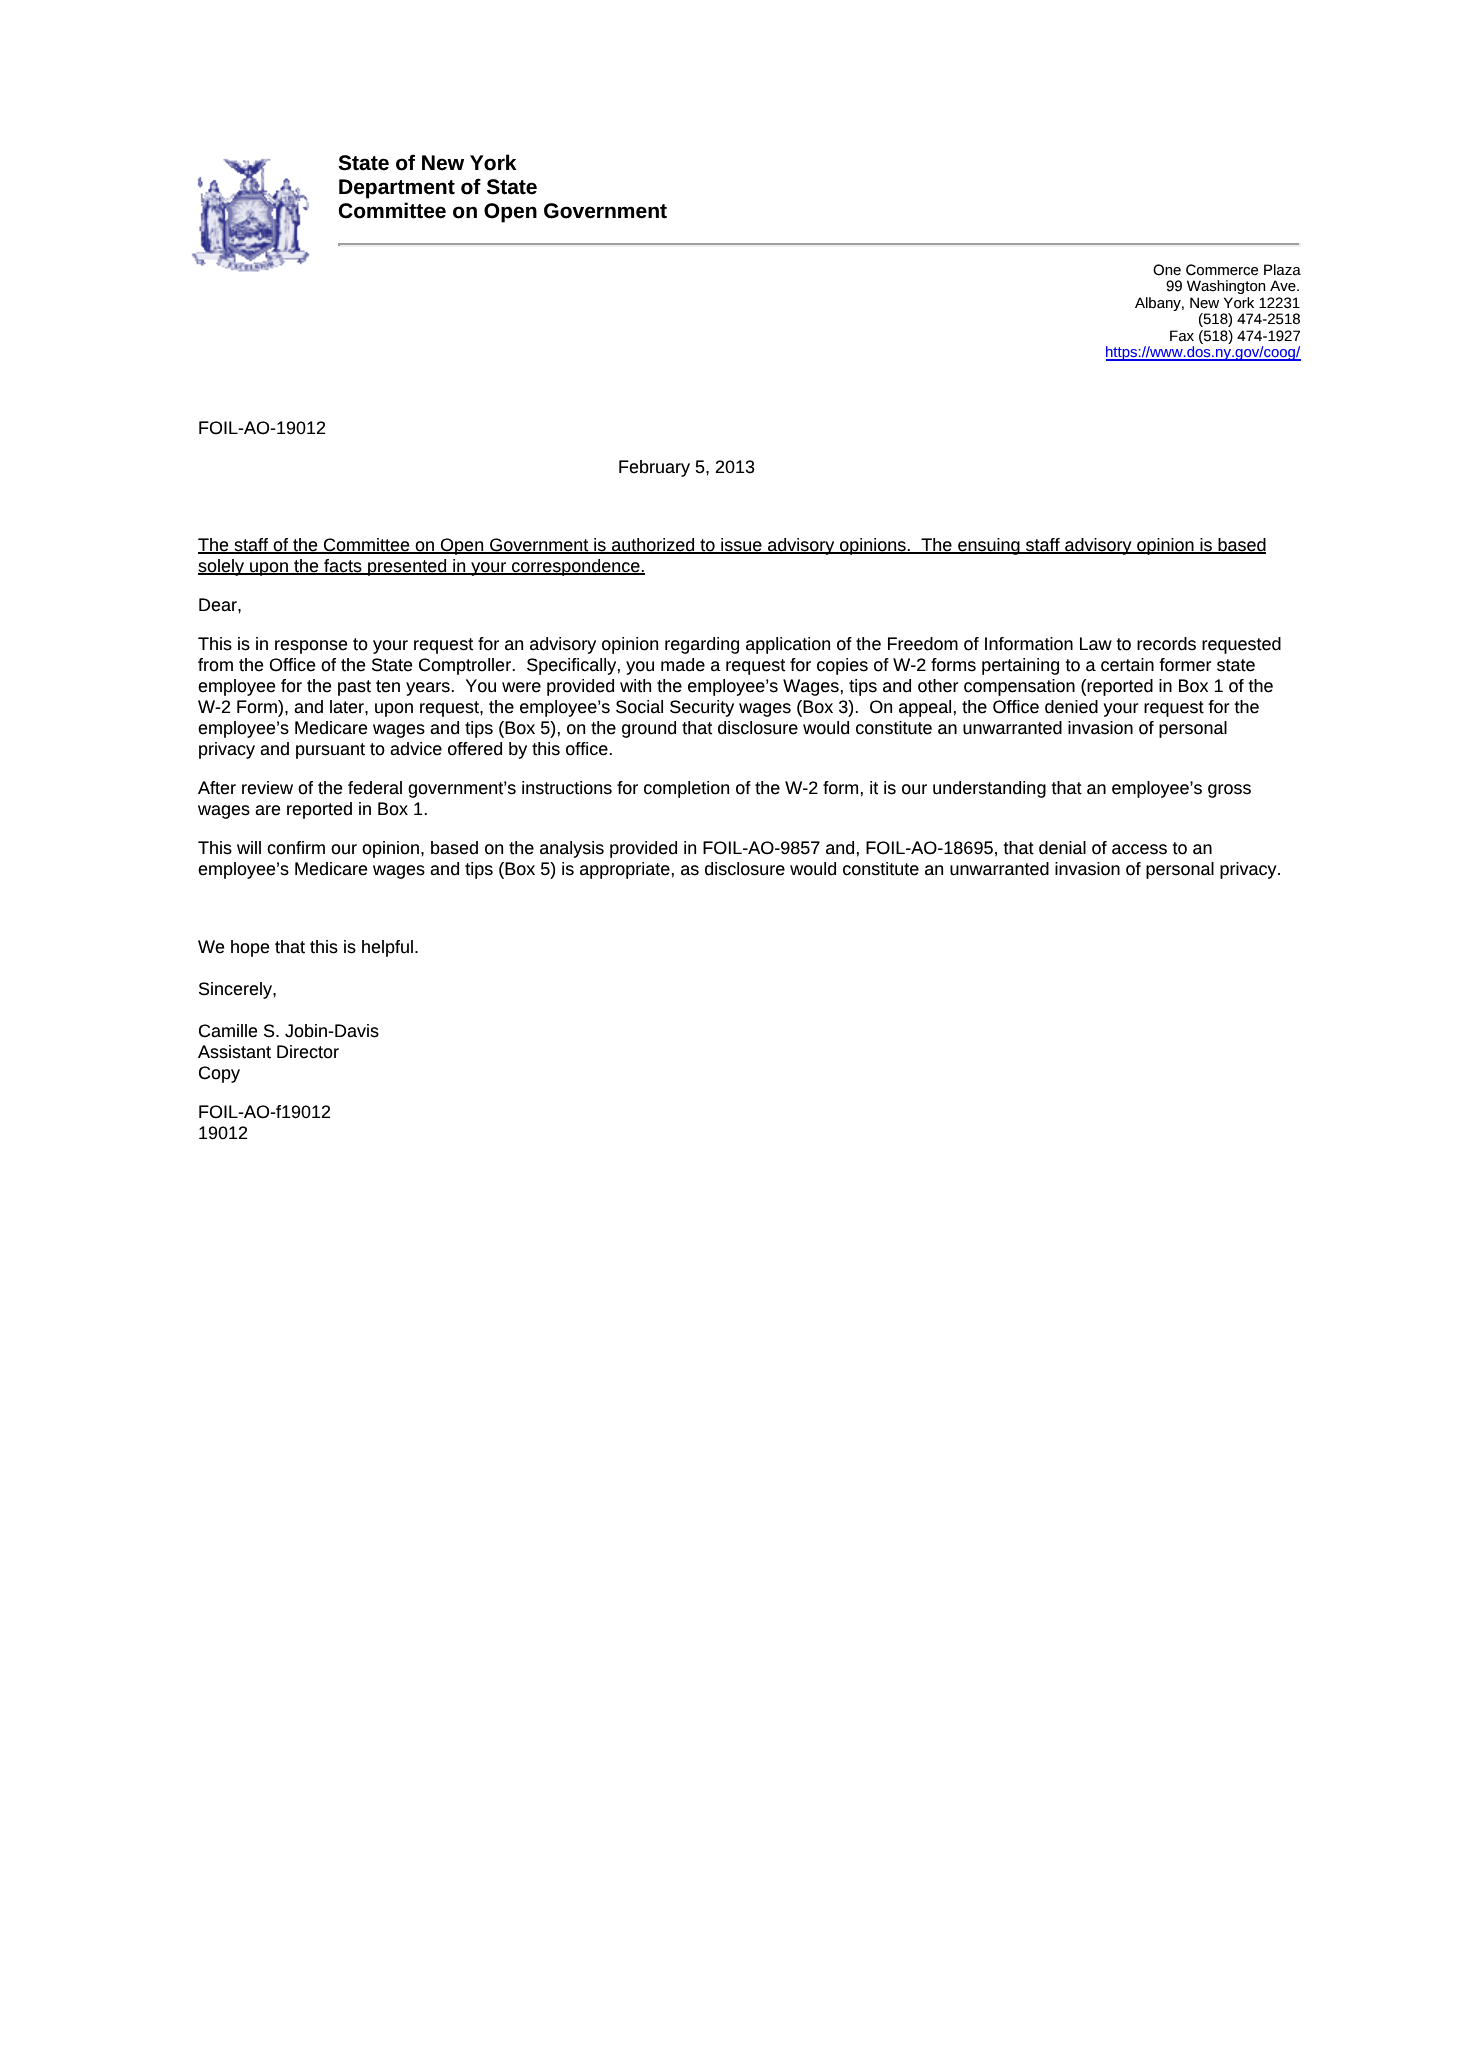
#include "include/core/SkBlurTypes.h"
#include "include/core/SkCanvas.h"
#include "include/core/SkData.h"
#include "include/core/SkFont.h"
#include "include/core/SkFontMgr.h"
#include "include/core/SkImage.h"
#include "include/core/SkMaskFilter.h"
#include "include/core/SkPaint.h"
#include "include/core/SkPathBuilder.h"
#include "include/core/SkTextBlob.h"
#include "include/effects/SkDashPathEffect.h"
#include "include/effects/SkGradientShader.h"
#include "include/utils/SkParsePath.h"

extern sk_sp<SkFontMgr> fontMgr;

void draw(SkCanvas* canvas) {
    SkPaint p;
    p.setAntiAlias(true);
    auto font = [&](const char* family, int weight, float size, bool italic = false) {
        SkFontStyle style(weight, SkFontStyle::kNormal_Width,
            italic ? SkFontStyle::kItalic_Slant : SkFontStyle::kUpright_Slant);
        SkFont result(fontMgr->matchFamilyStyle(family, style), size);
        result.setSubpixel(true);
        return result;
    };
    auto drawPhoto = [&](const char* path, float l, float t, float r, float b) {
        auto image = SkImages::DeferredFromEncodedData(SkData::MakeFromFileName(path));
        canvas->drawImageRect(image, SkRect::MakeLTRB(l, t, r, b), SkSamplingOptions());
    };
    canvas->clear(0xFFFFFFFF);
    drawPhoto("media/1.png", 191, 158, 310, 272);
    auto font1 = font("Liberation Sans", 700, 21);
    p.setColor(0xFF000000);
    {
        const struct { const char* s; float x, y; } items[] = {
            {"State of New York", 338, 170},
            {"Department of State", 338, 194},
            {"Committee on Open Government", 338, 218},
        };
        for (auto [s, x, y] : items) {
            canvas->drawString(s, x, y, font1, p);
        }
    }
    {
        const struct { float l, t, r, b; SkColor color; } items[] = {
            {338, 243, 1301, 245, 0xFF9F9F9F},
            {1299, 243, 1301, 246, 0xFFEEEEEE},
            {338, 245, 1301, 247, 0xFFEEEEEE},
            {338, 243, 340, 246, 0xFF9F9F9F},
        };
        for (auto [l, t, r, b, color] : items) {
            p.setColor(color);
            canvas->drawRect(SkRect::MakeLTRB(l, t, r, b), p);
        }
    }
    auto font2 = font("Liberation Sans", 400, 15);
    p.setColor(0xFF000000);
    {
        const struct { const char* s; float x, y; } items[] = {
            {"One Commerce Plaza", 1153, 275},
            {"99 Washington Ave.", 1166, 291},
            {"Albany, New York 12231", 1135, 308},
            {"(518) 474-2518", 1198, 324},
            {"Fax (518) 474-1927", 1169, 341},
        };
        for (auto [s, x, y] : items) {
            canvas->drawString(s, x, y, font2, p);
        }
    }
    p.setColor(0xFF0000EE);
    canvas->drawRect(SkRect::MakeLTRB(1106, 359, 1301, 361), p);
    canvas->drawString("https://www.dos.ny.gov/coog/", 1105, 357, font2, p);
    auto font3 = font("Liberation Sans", 400, 18);
    p.setColor(0xFF000000);
    canvas->drawString("FOIL-AO-19012", 198, 434, font3, p);
    canvas->drawString("February 5, 2013", 618, 473, font3, p);
    canvas->drawRect(SkRect::MakeLTRB(198, 552, 1266, 554), p);
    canvas->drawString("The staff of the Committee on Open Government is authorized to issue advisory opinions.  The ensuing staff advisory opinion is based", 198, 551, font3, p);
    canvas->drawRect(SkRect::MakeLTRB(198, 573, 645, 575), p);
    {
        const struct { const char* s; float x, y; } items[] = {
            {"solely upon the facts presented in your correspondence.", 198, 572},
            {"Dear,", 198, 611},
            {"This is in response to your request for an advisory opinion regarding application of the Freedom of Information Law to records requested", 198, 650},
            {"from the Office of the State Comptroller.  Specifically, you made a request for copies of W-2 forms pertaining to a certain former state", 198, 671},
            {"employee for the past ten years.  You were provided with the employee’s Wages, tips and other compensation (reported in Box 1 of the", 198, 692},
            {"W-2 Form), and later, upon request, the employee’s Social Security wages (Box 3).  On appeal, the Office denied your request for the", 198, 713},
            {"employee’s Medicare wages and tips (Box 5), on the ground that disclosure would constitute an unwarranted invasion of personal", 198, 734},
            {"privacy and pursuant to advice offered by this office.", 198, 755},
            {"After review of the federal government’s instructions for completion of the W-2 form, it is our understanding that an employee’s gross", 198, 794},
            {"wages are reported in Box 1.", 198, 815},
            {"This will confirm our opinion, based on the analysis provided in FOIL-AO-9857 and, FOIL-AO-18695, that denial of access to an", 198, 854},
            {"employee’s Medicare wages and tips (Box 5) is appropriate, as disclosure would constitute an unwarranted invasion of personal privacy.", 198, 875},
            {"We hope that this is helpful.", 198, 953},
            {"Sincerely,", 198, 995},
            {"Camille S. Jobin-Davis", 198, 1037},
            {"Assistant Director", 198, 1058},
            {"Copy", 198, 1079},
            {"FOIL-AO-f19012", 198, 1118},
            {"19012", 198, 1139},
        };
        for (auto [s, x, y] : items) {
            canvas->drawString(s, x, y, font3, p);
        }
    }
}
